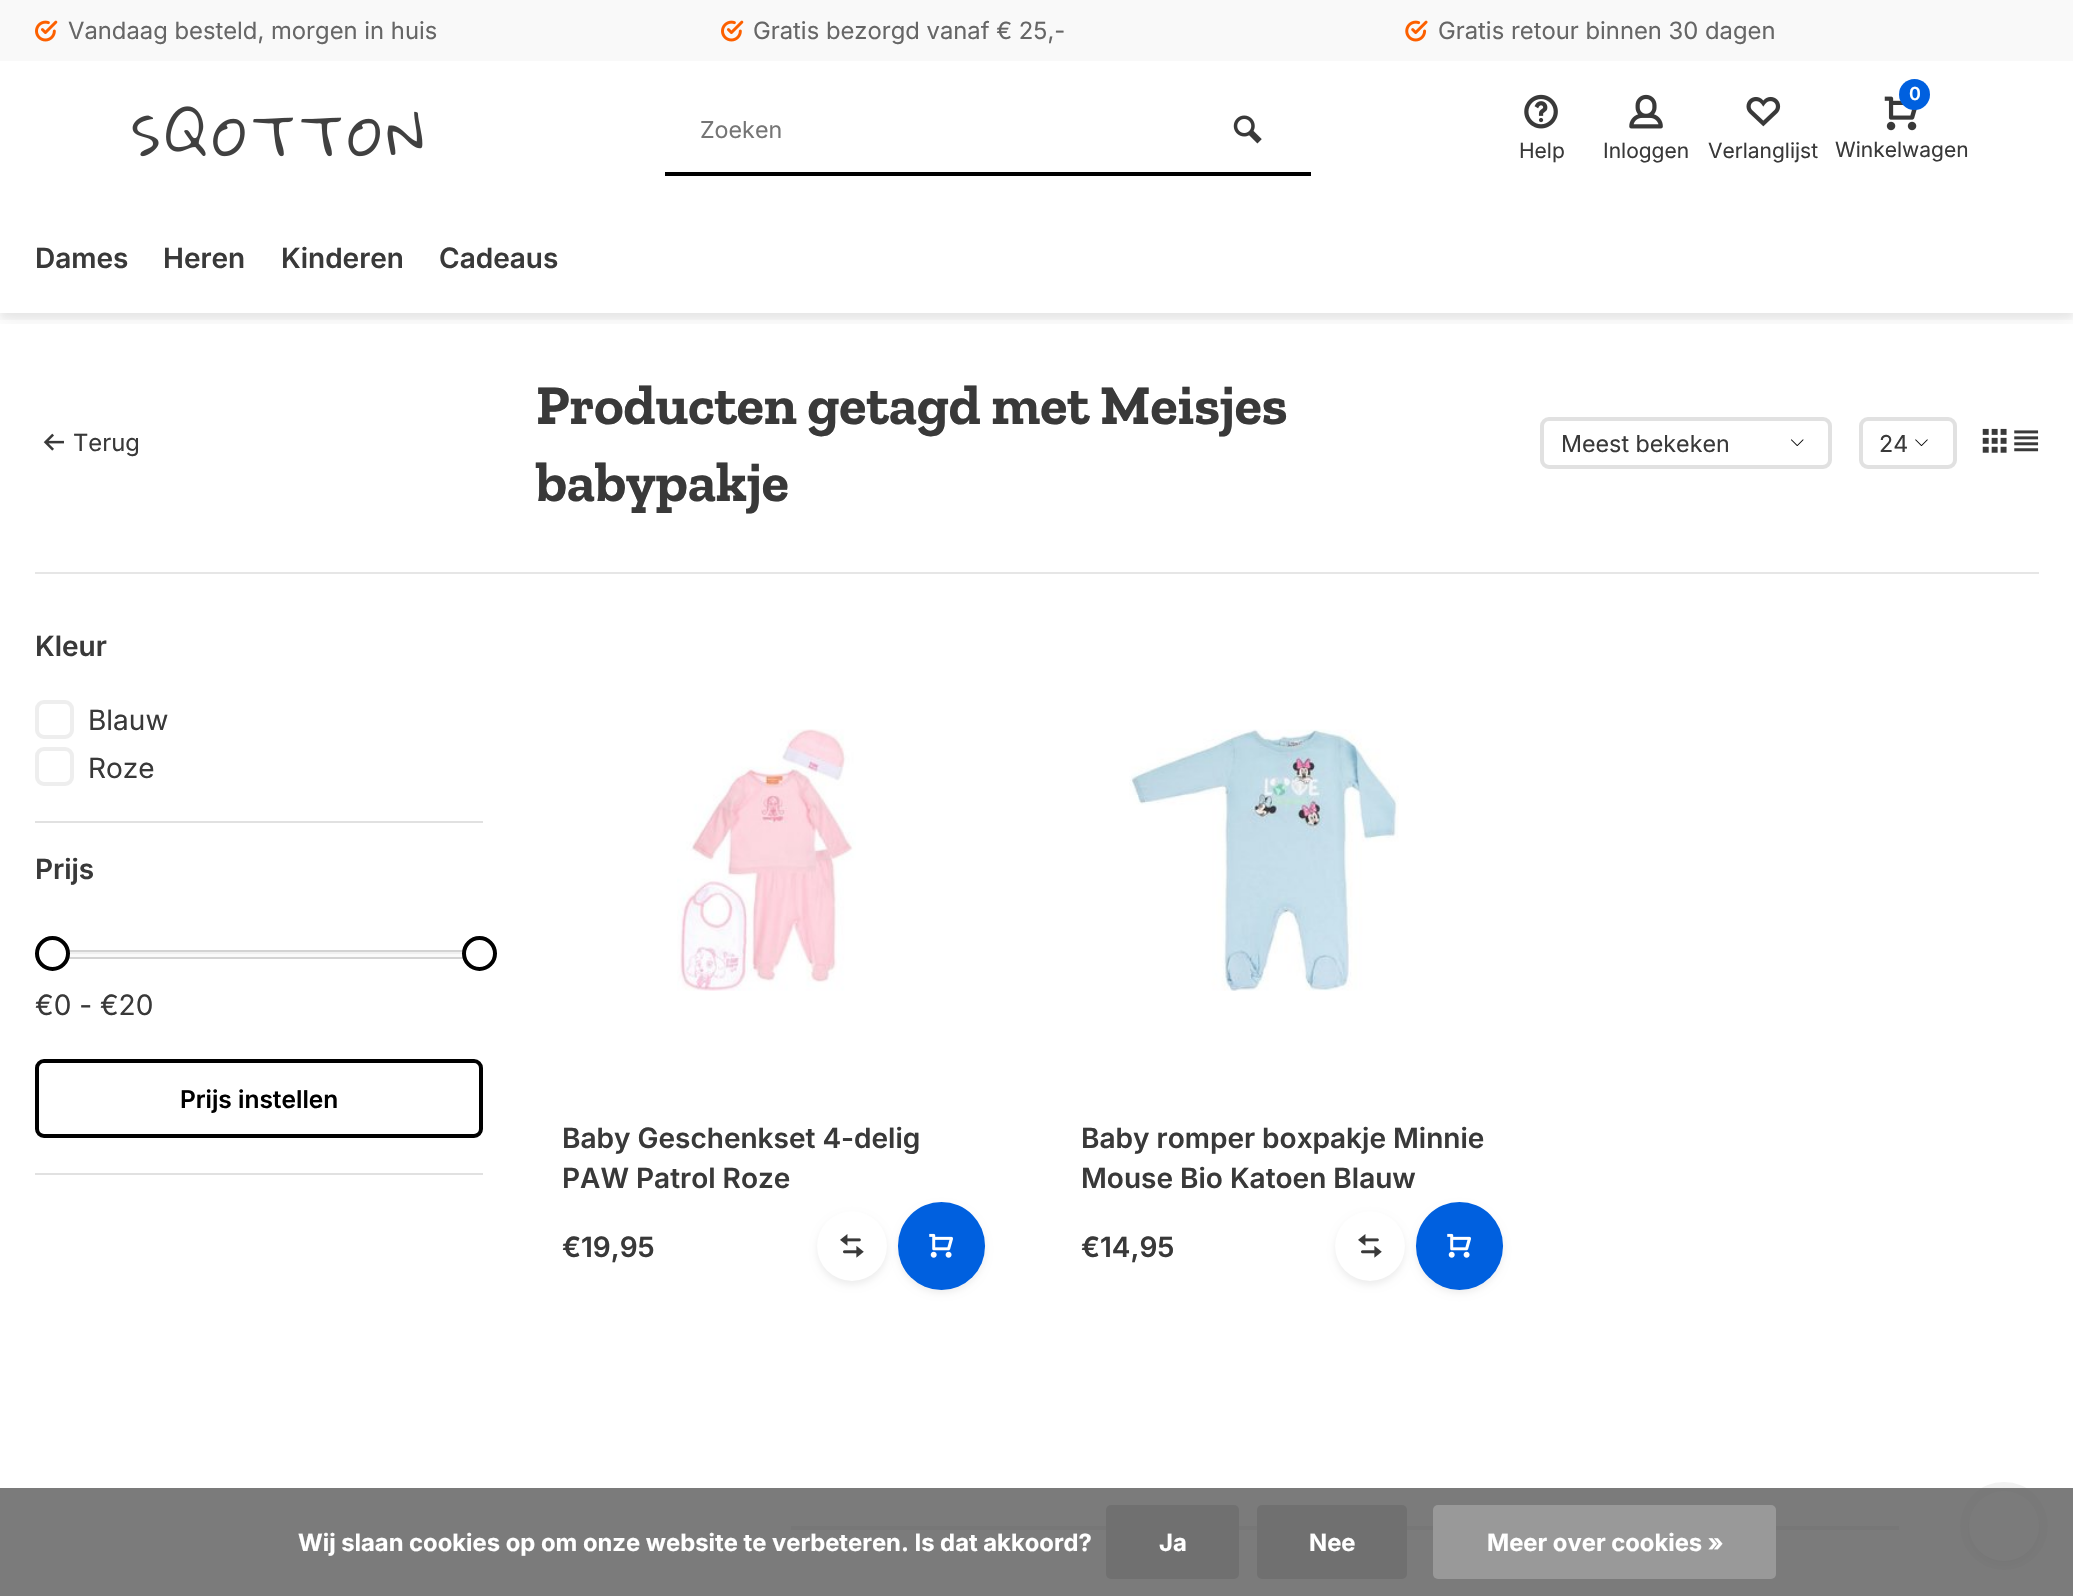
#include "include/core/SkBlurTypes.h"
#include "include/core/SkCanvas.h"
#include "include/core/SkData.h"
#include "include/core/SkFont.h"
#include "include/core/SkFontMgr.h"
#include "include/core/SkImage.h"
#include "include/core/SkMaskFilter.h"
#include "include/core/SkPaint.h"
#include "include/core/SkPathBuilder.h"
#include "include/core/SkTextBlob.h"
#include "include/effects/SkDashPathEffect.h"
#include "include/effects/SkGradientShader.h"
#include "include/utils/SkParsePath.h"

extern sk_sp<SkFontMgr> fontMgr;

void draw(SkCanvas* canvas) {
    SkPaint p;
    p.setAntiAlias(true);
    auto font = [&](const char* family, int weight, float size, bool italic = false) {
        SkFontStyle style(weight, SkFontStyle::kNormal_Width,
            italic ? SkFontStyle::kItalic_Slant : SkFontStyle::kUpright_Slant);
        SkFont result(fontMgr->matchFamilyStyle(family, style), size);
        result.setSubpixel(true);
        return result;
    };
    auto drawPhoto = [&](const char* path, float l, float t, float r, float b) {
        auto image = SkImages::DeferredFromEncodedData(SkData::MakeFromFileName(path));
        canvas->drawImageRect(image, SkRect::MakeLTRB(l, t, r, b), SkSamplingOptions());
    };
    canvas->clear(0xFFFFFFFF);
    canvas->save();
    canvas->clipRect(SkRect::MakeLTRB(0, 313, 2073, 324));
    p.setColor(0x0D000000);
    p.setMaskFilter(SkMaskFilter::MakeBlur(kNormal_SkBlurStyle, 9));
    canvas->drawRect(SkRect::MakeLTRB(0, 70, 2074, 322), p);
    p.setMaskFilter(nullptr);
    canvas->restore();
    canvas->save();
    canvas->clipRect(SkRect::MakeLTRB(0, 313, 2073, 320));
    p.setMaskFilter(SkMaskFilter::MakeBlur(kNormal_SkBlurStyle, 3.5f));
    canvas->drawRect(SkRect::MakeLTRB(0, 67, 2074, 319), p);
    p.setMaskFilter(nullptr);
    canvas->restore();
    p.setColor(0xFFF9F9F9);
    canvas->drawRect(SkRect::MakeLTRB(0, 0, 2073, 61), p);
    drawPhoto("media/1.png", 35, 20, 58, 42);
    auto font1 = font("Inter", 400, 23.8f);
    p.setColor(0xFF666666);
    canvas->drawString("Vandaag besteld, morgen in huis", 68, 39, font1, p);
    drawPhoto("media/1.png", 721, 20, 744, 42);
    canvas->drawString("Gratis bezorgd vanaf € 25,-", 753, 39, font1, p);
    drawPhoto("media/2.png", 1405, 20, 1428, 42);
    canvas->drawString("Gratis retour binnen 30 dagen", 1438, 39, font1, p);
    drawPhoto("media/3.png", 132, 106, 423, 157);
    p.setColor(0xFF000000);
    canvas->drawRect(SkRect::MakeLTRB(665, 172, 1311, 176), p);
    auto font2 = font("Inter", 400, 23.25f);
    p.setColor(0xFF757575);
    canvas->drawString("Zoeken", 700, 138, font2, p);
    drawPhoto("media/4.png", 1233, 115, 1262, 144);
    drawPhoto("media/5.png", 1524, 94, 1558, 129);
    auto font3 = font("Inter", 400, 21);
    p.setColor(0xFF393939);
    canvas->drawString("Help", 1519, 158, font3, p);
    drawPhoto("media/6.png", 1629, 94, 1663, 129);
    canvas->drawString("Inloggen", 1603, 158, font3, p);
    drawPhoto("media/7.png", 1746, 96, 1781, 127);
    canvas->drawString("Verlanglijst", 1708, 158, font3, p);
    drawPhoto("media/8.png", 1884, 96, 1917, 131);
    p.setColor(0xFF0060DF);
    canvas->drawCircle(1914.5f, 94.5f, 15.5f, p);
    auto font4 = font("Inter", 600, 18);
    p.setColor(0xFFFFFFFF);
    canvas->drawString("0", 1909, 100, font4, p);
    p.setColor(0xFF393939);
    canvas->drawString("Winkelwagen", 1835, 157, font3, p);
    auto font5 = font("Inter", 600, 28);
    {
        const struct { const char* s; float x, y; } items[] = {
            {"Dames", 35, 268},
            {"Heren", 163, 268},
            {"Kinderen", 281, 268},
            {"Cadeaus", 439, 268},
        };
        for (auto [s, x, y] : items) {
            canvas->drawString(s, x, y, font5, p);
        }
    }
    p.setColor(0xFFE6E6E6);
    canvas->drawRect(SkRect::MakeLTRB(35, 572, 2039, 574), p);
    drawPhoto("media/9.png", 43, 433, 64, 451);
    p.setColor(0xFF393939);
    canvas->drawString("Terug", 73, 451, font1, p);
    auto font6 = font("Zilla Slab", 700, 56);
    canvas->drawString("Producten getagd met Meisjes", 536, 424, font6, p);
    canvas->drawString("babypakje", 536, 501, font6, p);
    drawPhoto("media/10.png", 1791, 439, 1804, 446);
    p.setStyle(SkPaint::kStroke_Style);
    p.setStrokeWidth(4);
    p.setColor(0xFFE1E1E1);
    canvas->drawRoundRect(SkRect::MakeLTRB(1542, 419, 1830, 467), 7, 7, p);
    p.setStyle(SkPaint::kFill_Style);
    p.setColor(0xFF393939);
    canvas->drawString("Meest bekeken", 1561, 452, font2, p);
    drawPhoto("media/11.png", 1915, 439, 1928, 446);
    p.setStyle(SkPaint::kStroke_Style);
    p.setColor(0xFFE1E1E1);
    canvas->drawRoundRect(SkRect::MakeLTRB(1861, 419, 1955, 467), 7, 7, p);
    p.setStyle(SkPaint::kFill_Style);
    p.setColor(0xFF393939);
    canvas->drawString("24", 1879, 452, font2, p);
    drawPhoto("media/12.png", 1982, 428, 2007, 453);
    drawPhoto("media/13.png", 2014, 430, 2039, 452);
    p.setColor(0xFFE1E1E1);
    canvas->drawRect(SkRect::MakeLTRB(35, 821, 483, 823), p);
    p.setColor(0xFF393939);
    canvas->drawString("Kleur", 35, 656, font5, p);
    p.setStyle(SkPaint::kStroke_Style);
    p.setColor(0xFFEEEEEE);
    canvas->drawRoundRect(SkRect::MakeLTRB(37, 702, 72, 737), 7, 7, p);
    auto font7 = font("Inter", 400, 28);
    p.setStyle(SkPaint::kFill_Style);
    p.setColor(0xFF393939);
    canvas->drawString("Blauw", 88, 730, font7, p);
    p.setStyle(SkPaint::kStroke_Style);
    p.setColor(0xFFEEEEEE);
    canvas->drawRoundRect(SkRect::MakeLTRB(37, 749, 72, 784), 7, 7, p);
    p.setStyle(SkPaint::kFill_Style);
    p.setColor(0xFF393939);
    canvas->drawString("Roze", 88, 778, font7, p);
    p.setColor(0xFFE1E1E1);
    canvas->drawRect(SkRect::MakeLTRB(35, 1173, 483, 1175), p);
    p.setColor(0xFF393939);
    canvas->drawString("Prijs", 35, 879, font5, p);
    p.setColor(0xFFFAFAFA);
    canvas->drawRoundRect(SkRect::MakeLTRB(35, 950, 483, 959), 4.5f, 4.5f, p);
    p.setColor(0xFFF0F0F0);
    canvas->drawPath(SkPathBuilder().moveTo(39, 954).lineTo(479, 954).lineTo(481, 956).cubicTo(482, 954, 480, 952, 478, 952).lineTo(259, 952).cubicTo(242, 952, 40, 951, 38, 952).cubicTo(37, 953, 37, 954, 37, 955).close().detach(), p);
    p.setStyle(SkPaint::kStroke_Style);
    p.setStrokeWidth(2);
    p.setColor(0xFFD3D3D3);
    canvas->drawRoundRect(SkRect::MakeLTRB(36, 951, 482, 958), 3.5f, 3.5f, p);
    p.setStyle(SkPaint::kFill_Style);
    p.setColor(0xFFFFFFFF);
    canvas->drawCircle(52.5f, 953.5f, 15.5f, p);
    p.setStyle(SkPaint::kStroke_Style);
    p.setStrokeWidth(4);
    p.setColor(0xFF000000);
    canvas->drawCircle(52.5f, 953.5f, 15.5f, p);
    p.setStyle(SkPaint::kFill_Style);
    p.setColor(0xFFFFFFFF);
    canvas->drawCircle(479.5f, 953.5f, 15.5f, p);
    p.setStyle(SkPaint::kStroke_Style);
    p.setColor(0xFF000000);
    canvas->drawCircle(479.5f, 953.5f, 15.5f, p);
    p.setStyle(SkPaint::kFill_Style);
    p.setColor(0xFF393939);
    canvas->drawString("€0 - €20", 35, 1015, font7, p);
    p.setStyle(SkPaint::kStroke_Style);
    p.setColor(0xFF000000);
    canvas->drawRoundRect(SkRect::MakeLTRB(37, 1061, 481, 1136), 7, 7, p);
    auto font8 = font("Inter", 600, 24.5f);
    p.setStyle(SkPaint::kFill_Style);
    canvas->drawString("Prijs instellen", 180, 1108, font8, p);
    drawPhoto("media/14.png", 677, 729, 856, 991);
    p.setColor(0xFF393939);
    {
        const struct { const char* s; float x, y; } items[] = {
            {"Baby Geschenkset 4-delig", 562, 1148},
            {"PAW Patrol Roze", 562, 1188},
            {"€19,95", 562, 1257},
        };
        for (auto [s, x, y] : items) {
            canvas->drawString(s, x, y, font5, p);
        }
    }
    p.setColor(0x12000000);
    p.setMaskFilter(SkMaskFilter::MakeBlur(kNormal_SkBlurStyle, 3.5f));
    canvas->drawRoundRect(SkRect::MakeLTRB(817, 1215, 887, 1285), 35, 35, p);
    p.setMaskFilter(nullptr);
    p.setColor(0xFFFFFFFF);
    canvas->drawCircle(852, 1246, 35, p);
    drawPhoto("media/15.png", 840, 1234, 864, 1258);
    p.setColor(0x12000000);
    p.setMaskFilter(SkMaskFilter::MakeBlur(kNormal_SkBlurStyle, 3.5f));
    canvas->drawRoundRect(SkRect::MakeLTRB(898, 1206, 985, 1293), 43.5f, 43.5f, p);
    p.setMaskFilter(nullptr);
    p.setColor(0xFF0060DF);
    canvas->drawRoundRect(SkRect::MakeLTRB(898, 1202, 985, 1290), 43.5f, 43.5f, p);
    drawPhoto("media/16.png", 929, 1233, 953, 1258);
    drawPhoto("media/17.png", 1129, 729, 1399, 991);
    p.setColor(0xFF393939);
    {
        const struct { const char* s; float x, y; } items[] = {
            {"Baby romper boxpakje Minnie", 1081, 1148},
            {"Mouse Bio Katoen Blauw", 1081, 1188},
            {"€14,95", 1081, 1257},
        };
        for (auto [s, x, y] : items) {
            canvas->drawString(s, x, y, font5, p);
        }
    }
    p.setColor(0x12000000);
    p.setMaskFilter(SkMaskFilter::MakeBlur(kNormal_SkBlurStyle, 3.5f));
    canvas->drawRoundRect(SkRect::MakeLTRB(1335, 1215, 1405, 1285), 35, 35, p);
    p.setMaskFilter(nullptr);
    p.setColor(0xFFFFFFFF);
    canvas->drawCircle(1370, 1246, 35, p);
    drawPhoto("media/15.png", 1358, 1234, 1382, 1258);
    p.setColor(0x12000000);
    p.setMaskFilter(SkMaskFilter::MakeBlur(kNormal_SkBlurStyle, 3.5f));
    canvas->drawRoundRect(SkRect::MakeLTRB(1416, 1206, 1503, 1293), 43.5f, 43.5f, p);
    p.setMaskFilter(nullptr);
    p.setColor(0xFF0060DF);
    canvas->drawRoundRect(SkRect::MakeLTRB(1416, 1202, 1503, 1290), 43.5f, 43.5f, p);
    drawPhoto("media/16.png", 1447, 1233, 1471, 1258);
    p.setColor(0xFFE1E1E1);
    canvas->drawRect(SkRect::MakeLTRB(791, 1526, 1899, 1530), p);
    p.setColor(0xFFF2F2F2);
    canvas->drawCircle(2004, 1526, 44, p);
    p.setColor(0x12000000);
    p.setMaskFilter(SkMaskFilter::MakeBlur(kNormal_SkBlurStyle, 3.5f));
    canvas->drawRoundRect(SkRect::MakeLTRB(1969, 1495, 2039, 1565), 35, 35, p);
    p.setMaskFilter(nullptr);
    p.setColor(0xFFFFFFFF);
    canvas->drawCircle(2004, 1526, 35, p);
    p.setColor(0xD9646464);
    canvas->drawRect(SkRect::MakeLTRB(0, 1488, 2073, 1596), p);
    auto font9 = font("Inter", 700, 23.8f);
    p.setColor(0xFFFFFFFF);
    canvas->drawString("Wij slaan cookies op om onze website te verbeteren. Is dat akkoord?", 298, 1551, font9, p);
    p.setColor(0xFF707070);
    canvas->drawRoundRect(SkRect::MakeLTRB(1106, 1505, 1239, 1579), 5, 5, p);
    p.setColor(0xFFFFFFFF);
    canvas->drawString("Ja", 1159, 1551, font9, p);
    p.setColor(0xFF707070);
    canvas->drawRoundRect(SkRect::MakeLTRB(1257, 1505, 1407, 1579), 5, 5, p);
    p.setColor(0xFFFFFFFF);
    canvas->drawString("Nee", 1309, 1551, font9, p);
    p.setColor(0xFF999999);
    canvas->drawRoundRect(SkRect::MakeLTRB(1433, 1505, 1776, 1579), 5, 5, p);
    p.setColor(0xFFFFFFFF);
    canvas->drawString("Meer over cookies »", 1487, 1551, font9, p);
}
